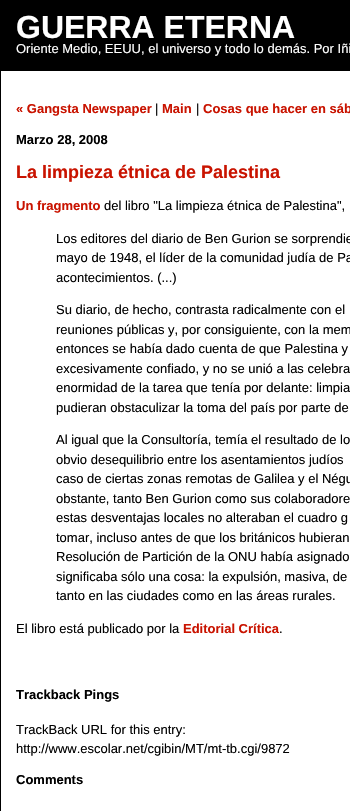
#include "include/core/SkBlurTypes.h"
#include "include/core/SkCanvas.h"
#include "include/core/SkData.h"
#include "include/core/SkFont.h"
#include "include/core/SkFontMgr.h"
#include "include/core/SkImage.h"
#include "include/core/SkMaskFilter.h"
#include "include/core/SkPaint.h"
#include "include/core/SkPathBuilder.h"
#include "include/core/SkTextBlob.h"
#include "include/effects/SkDashPathEffect.h"
#include "include/effects/SkGradientShader.h"
#include "include/utils/SkParsePath.h"

extern sk_sp<SkFontMgr> fontMgr;

void draw(SkCanvas* canvas) {
    SkPaint p;
    p.setAntiAlias(true);
    auto font = [&](const char* family, int weight, float size, bool italic = false) {
        SkFontStyle style(weight, SkFontStyle::kNormal_Width,
            italic ? SkFontStyle::kItalic_Slant : SkFontStyle::kUpright_Slant);
        SkFont result(fontMgr->matchFamilyStyle(family, style), size);
        result.setSubpixel(true);
        return result;
    };
    canvas->clear(0xFFFFFFFF);
    p.setStyle(SkPaint::kStroke_Style);
    p.setStrokeWidth(1);
    p.setColor(0xFF000000);
    canvas->drawRect(SkRect::MakeLTRB(0.5f, 0.5f, 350.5f, 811.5f), p);
    p.setStyle(SkPaint::kFill_Style);
    canvas->drawRect(SkRect::MakeLTRB(1, 1, 350, 71), p);
    auto font1 = font("Liberation Sans", 700, 32);
    p.setColor(0xFFFFFFFF);
    canvas->drawString("GUERRA ETERNA", 16, 38, font1, p);
    auto font2 = font("Liberation Sans", 400, 13);
    canvas->drawString("Oriente Medio, EEUU, el universo y todo lo demás. Por Iñi", 16, 53, font2, p);
    auto font3 = font("Liberation Sans", 700, 13);
    p.setColor(0xFFC91300);
    canvas->drawString("« Gangsta Newspaper", 16, 113, font3, p);
    p.setColor(0xFF000000);
    canvas->drawString("|", 155, 113, font2, p);
    p.setColor(0xFFC91300);
    canvas->drawString("Main", 162, 113, font3, p);
    p.setColor(0xFF000000);
    canvas->drawString("|", 196, 113, font2, p);
    p.setColor(0xFFC91300);
    canvas->drawString("Cosas que hacer en sáb", 203, 113, font3, p);
    p.setColor(0xFF000000);
    canvas->drawString("Marzo 28, 2008", 16, 144, font3, p);
    auto font4 = font("Liberation Sans", 700, 18);
    p.setColor(0xFFC91300);
    canvas->drawString("La limpieza étnica de Palestina", 16, 178, font4, p);
    canvas->drawString("Un fragmento", 16, 210, font3, p);
    p.setColor(0xFF000000);
    {
        const struct { const char* s; float x, y; } items[] = {
            {"del libro \"La limpieza étnica de Palestina\",", 104, 210},
            {"Los editores del diario de Ben Gurion se sorprendie", 56, 243},
            {"mayo de 1948, el líder de la comunidad judía de Pa", 56, 262},
            {"acontecimientos. (...)", 56, 282},
            {"Su diario, de hecho, contrasta radicalmente con el", 56, 314},
            {"reuniones públicas y, por consiguiente, con la mem", 56, 334},
            {"entonces se había dado cuenta de que Palestina y", 56, 353},
            {"excesivamente confiado, y no se unió a las celebra", 56, 373},
            {"enormidad de la tarea que tenía por delante: limpia", 56, 392},
            {"pudieran obstaculizar la toma del país por parte de", 56, 412},
            {"Al igual que la Consultoría, temía el resultado de lo", 56, 444},
            {"obvio desequilibrio entre los asentamientos judíos", 56, 464},
            {"caso de ciertas zonas remotas de Galilea y el Négu", 56, 483},
            {"obstante, tanto Ben Gurion como sus colaboradore", 56, 503},
            {"estas desventajas locales no alteraban el cuadro g", 56, 522},
            {"tomar, incluso antes de que los británicos hubieran", 56, 542},
            {"Resolución de Partición de la ONU había asignado", 56, 561},
            {"significaba sólo una cosa: la expulsión, masiva, de", 56, 581},
            {"tanto en las ciudades como en las áreas rurales.", 56, 600},
            {"El libro está publicado por la", 16, 633},
        };
        for (auto [s, x, y] : items) {
            canvas->drawString(s, x, y, font2, p);
        }
    }
    p.setColor(0xFFC91300);
    canvas->drawString("Editorial Crítica", 183, 633, font3, p);
    p.setColor(0xFF000000);
    canvas->drawString(".", 279, 633, font2, p);
    canvas->drawString("Trackback Pings", 16, 699, font3, p);
    canvas->drawString("TrackBack URL for this entry:", 16, 734, font2, p);
    canvas->drawString("http://www.escolar.net/cgibin/MT/mt-tb.cgi/9872", 16, 753, font2, p);
    canvas->drawString("Comments", 16, 784, font3, p);
}
